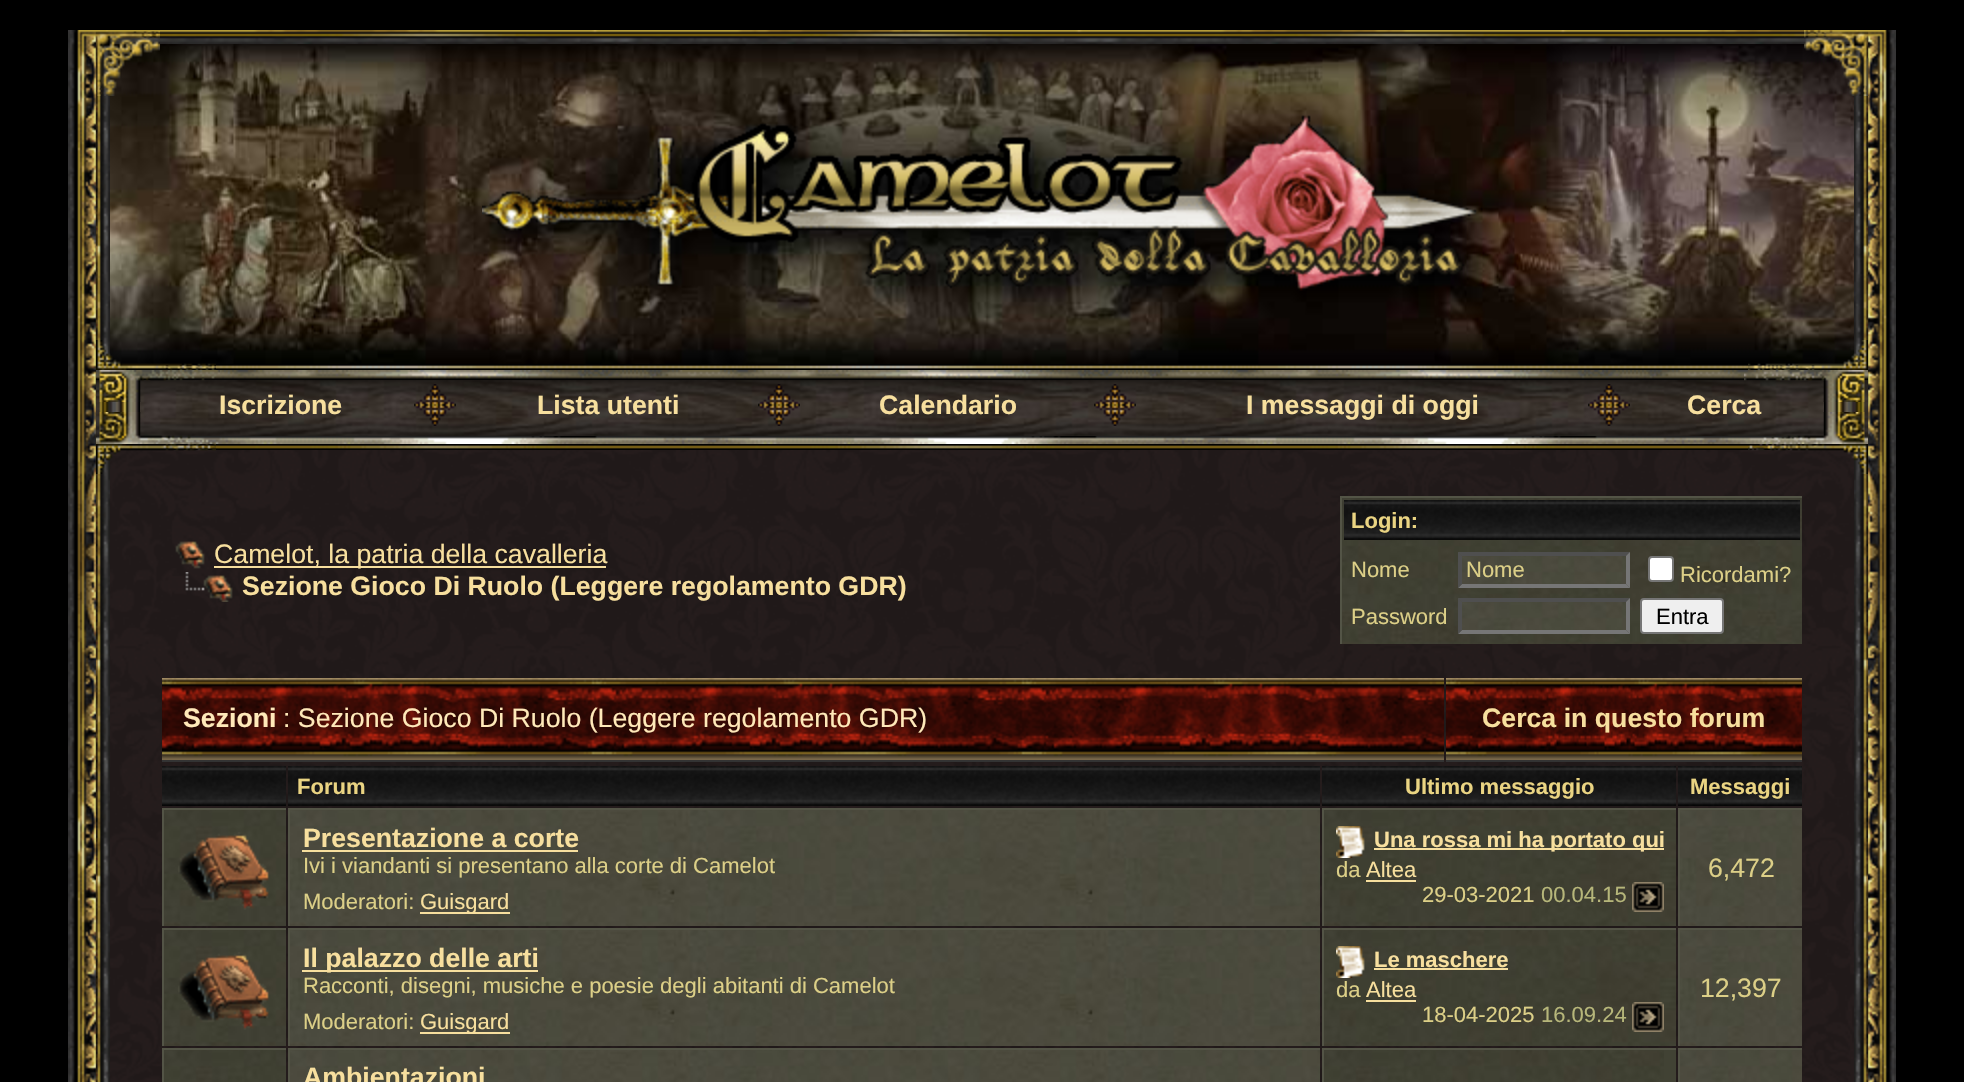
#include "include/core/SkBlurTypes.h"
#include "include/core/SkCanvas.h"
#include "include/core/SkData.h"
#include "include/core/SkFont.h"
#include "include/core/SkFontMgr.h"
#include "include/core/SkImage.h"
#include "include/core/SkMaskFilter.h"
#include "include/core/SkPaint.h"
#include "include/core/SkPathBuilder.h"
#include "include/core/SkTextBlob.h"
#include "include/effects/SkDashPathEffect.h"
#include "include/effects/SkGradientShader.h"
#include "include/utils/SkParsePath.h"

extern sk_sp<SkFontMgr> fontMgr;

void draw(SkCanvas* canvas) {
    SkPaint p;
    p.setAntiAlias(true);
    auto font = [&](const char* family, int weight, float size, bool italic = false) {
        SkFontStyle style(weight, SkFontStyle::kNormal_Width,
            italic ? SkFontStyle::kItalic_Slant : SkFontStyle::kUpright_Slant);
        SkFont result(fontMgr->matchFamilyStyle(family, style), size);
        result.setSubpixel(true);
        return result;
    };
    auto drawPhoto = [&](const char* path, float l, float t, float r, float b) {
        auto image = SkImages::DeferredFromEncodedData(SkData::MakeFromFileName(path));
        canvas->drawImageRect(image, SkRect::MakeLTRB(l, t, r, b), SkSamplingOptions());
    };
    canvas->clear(0xFF000000);
    drawPhoto("media/1.png", 68, 35, 96, 1082);
    drawPhoto("media/2.png", 1868, 35, 1896, 1082);
    drawPhoto("media/3.png", 68, 30, 96, 37);
    drawPhoto("media/4.png", 1868, 30, 1896, 96);
    drawPhoto("media/5.png", 110, 44, 1854, 370);
    drawPhoto("media/6.png", 113, 30, 1851, 44);
    drawPhoto("media/7.png", 119, 364, 1845, 369);
    drawPhoto("media/8.png", 96, 35, 110, 363);
    drawPhoto("media/9.png", 1854, 35, 1868, 363);
    drawPhoto("media/10.png", 96, 340, 216, 370);
    drawPhoto("media/11.png", 1748, 340, 1868, 370);
    drawPhoto("media/12.png", 96, 30, 160, 96);
    drawPhoto("media/13.png", 1804, 30, 1868, 96);
    drawPhoto("media/14.png", 482, 115, 1477, 291);
    drawPhoto("media/15.png", 96, 380, 1868, 436);
    drawPhoto("media/16.png", 96, 370, 1868, 380);
    drawPhoto("media/17.png", 96, 436, 1868, 444);
    drawPhoto("media/18.png", 99, 370, 140, 444);
    drawPhoto("media/19.png", 1824, 370, 1865, 444);
    drawPhoto("media/20.png", 99, 412, 219, 444);
    drawPhoto("media/21.png", 1761, 412, 1865, 444);
    drawPhoto("media/22.png", 99, 370, 220, 402);
    drawPhoto("media/23.png", 1744, 370, 1865, 402);
    auto font1 = font("Liberation Sans", 700, 26.7f);
    p.setColor(0xFFF7DF9E);
    canvas->drawString("Iscrizione", 219, 414, font1, p);
    drawPhoto("media/24.png", 414, 384, 456, 426);
    canvas->drawString("Lista utenti", 537, 414, font1, p);
    drawPhoto("media/25.png", 758, 384, 800, 426);
    canvas->drawString("Calendario", 879, 414, font1, p);
    drawPhoto("media/26.png", 1094, 384, 1136, 426);
    canvas->drawString("I messaggi di oggi", 1246, 414, font1, p);
    drawPhoto("media/27.png", 1588, 384, 1630, 426);
    canvas->drawString("Cerca", 1687, 414, font1, p);
    drawPhoto("media/28.png", 110, 450, 1854, 1082);
    drawPhoto("media/29.png", 119, 444, 1845, 450);
    drawPhoto("media/30.png", 96, 451, 110, 1082);
    drawPhoto("media/31.png", 1854, 451, 1868, 1082);
    drawPhoto("media/32.png", 96, 444, 216, 474);
    drawPhoto("media/33.png", 1748, 444, 1868, 474);
    drawPhoto("media/34.png", 175, 541, 205, 569);
    canvas->drawRect(SkRect::MakeLTRB(214, 566, 606, 568), p);
    auto font2 = font("Liberation Sans", 400, 26.7f);
    canvas->drawString("Camelot, la patria della cavalleria", 214, 563, font2, p);
    drawPhoto("media/35.png", 185, 572, 233, 602);
    canvas->drawString("Sezione Gioco Di Ruolo (Leggere regolamento GDR)", 242, 595, font1, p);
    drawPhoto("media/36.png", 1342, 498, 1802, 644);
    p.setColor(0xFF535446);
    canvas->drawRect(SkRect::MakeLTRB(1340, 496, 1802, 498), p);
    canvas->drawRect(SkRect::MakeLTRB(1340, 496, 1342, 644), p);
    drawPhoto("media/37.png", 1344, 500, 1800, 540);
    auto font3 = font("Liberation Sans", 700, 22);
    p.setColor(0xFFEAD482);
    canvas->drawString("Login:", 1351, 528, font3, p);
    auto font4 = font("Liberation Sans", 400, 22);
    p.setColor(0xFFDCCF87);
    canvas->drawString("Nome", 1351, 577, font4, p);
    drawPhoto("media/38.png", 1458, 552, 1630, 588);
    p.setColor(0xFF4F4F4F);
    canvas->drawPath(SkPathBuilder().moveTo(1458, 552).lineTo(1630, 552).lineTo(1626, 556).lineTo(1462, 556).close().detach(), p);
    p.setColor(0xFF767676);
    canvas->drawPath(SkPathBuilder().moveTo(1630, 552).lineTo(1630, 588).lineTo(1626, 584).lineTo(1626, 556).close().detach(), p);
    canvas->drawPath(SkPathBuilder().moveTo(1630, 588).lineTo(1458, 588).lineTo(1462, 584).lineTo(1626, 584).close().detach(), p);
    p.setColor(0xFF4F4F4F);
    canvas->drawPath(SkPathBuilder().moveTo(1458, 588).lineTo(1458, 552).lineTo(1462, 556).lineTo(1462, 584).close().detach(), p);
    p.setColor(0xFFDCCF87);
    canvas->drawString("Nome", 1466, 577, font4, p);
    p.setColor(0xFFFFFFFF);
    canvas->drawRoundRect(SkRect::MakeLTRB(1649, 557, 1673, 581), 3, 3, p);
    p.setStyle(SkPaint::kStroke_Style);
    p.setStrokeWidth(2);
    p.setColor(0xFF767676);
    canvas->drawRoundRect(SkRect::MakeLTRB(1649, 557, 1673, 581), 3, 3, p);
    p.setStyle(SkPaint::kFill_Style);
    p.setColor(0xFFDCCF87);
    canvas->drawString("Ricordami?", 1680, 582, font4, p);
    canvas->drawString("Password", 1351, 624, font4, p);
    drawPhoto("media/38.png", 1458, 598, 1630, 634);
    p.setColor(0xFF4F4F4F);
    canvas->drawPath(SkPathBuilder().moveTo(1458, 598).lineTo(1630, 598).lineTo(1626, 602).lineTo(1462, 602).close().detach(), p);
    p.setColor(0xFF767676);
    canvas->drawPath(SkPathBuilder().moveTo(1630, 598).lineTo(1630, 634).lineTo(1626, 630).lineTo(1626, 602).close().detach(), p);
    canvas->drawPath(SkPathBuilder().moveTo(1630, 634).lineTo(1458, 634).lineTo(1462, 630).lineTo(1626, 630).close().detach(), p);
    p.setColor(0xFF4F4F4F);
    canvas->drawPath(SkPathBuilder().moveTo(1458, 634).lineTo(1458, 598).lineTo(1462, 602).lineTo(1462, 630).close().detach(), p);
    p.setColor(0xFFEFEFEF);
    canvas->drawRoundRect(SkRect::MakeLTRB(1641, 599, 1723, 633), 3, 3, p);
    p.setStyle(SkPaint::kStroke_Style);
    p.setColor(0xFF767676);
    canvas->drawRoundRect(SkRect::MakeLTRB(1641, 599, 1723, 633), 3, 3, p);
    p.setStyle(SkPaint::kFill_Style);
    p.setColor(0xFF000000);
    canvas->drawString("Entra", 1656, 624, font4, p);
    p.setColor(0xFF333333);
    canvas->drawRect(SkRect::MakeLTRB(162, 760, 1444, 762), p);
    drawPhoto("media/39.png", 162, 678, 1444, 760);
    p.setColor(0xFFFFE9B9);
    canvas->drawString("Sezioni", 183, 727, font1, p);
    canvas->drawString(": Sezione Gioco Di Ruolo (Leggere regolamento GDR)", 283, 727, font2, p);
    p.setColor(0xFF333333);
    canvas->drawRect(SkRect::MakeLTRB(1446, 760, 1802, 762), p);
    drawPhoto("media/40.png", 1446, 678, 1802, 760);
    p.setColor(0xFFF7DF9E);
    canvas->drawString("Cerca in questo forum", 1482, 727, font1, p);
    drawPhoto("media/41.png", 162, 766, 286, 806);
    drawPhoto("media/42.png", 288, 766, 1320, 806);
    p.setColor(0xFFEAD482);
    canvas->drawString("Forum", 297, 794, font3, p);
    drawPhoto("media/43.png", 1322, 766, 1676, 806);
    canvas->drawString("Ultimo messaggio", 1405, 794, font3, p);
    drawPhoto("media/44.png", 1678, 766, 1802, 806);
    canvas->drawString("Messaggi", 1690, 794, font3, p);
    drawPhoto("media/45.png", 164, 810, 286, 926);
    p.setColor(0xFF535446);
    canvas->drawRect(SkRect::MakeLTRB(162, 808, 286, 810), p);
    canvas->drawRect(SkRect::MakeLTRB(162, 808, 164, 926), p);
    drawPhoto("media/46.png", 178, 832, 269, 910);
    drawPhoto("media/47.png", 290, 810, 1320, 926);
    canvas->drawRect(SkRect::MakeLTRB(288, 808, 1320, 810), p);
    canvas->drawRect(SkRect::MakeLTRB(288, 808, 290, 926), p);
    p.setColor(0xFFF7DF9E);
    canvas->drawString("Presentazione a corte", 303, 847, font1, p);
    canvas->drawRect(SkRect::MakeLTRB(302, 850, 578, 852), p);
    p.setColor(0xFFDCCF87);
    canvas->drawString("Ivi i viandanti si presentano alla corte di Camelot", 303, 873, font4, p);
    canvas->drawString("Moderatori:", 303, 909, font4, p);
    p.setColor(0xFFF7DF9E);
    canvas->drawRect(SkRect::MakeLTRB(420, 912, 510, 914), p);
    canvas->drawString("Guisgard", 420, 909, font4, p);
    drawPhoto("media/48.png", 1324, 810, 1676, 926);
    p.setColor(0xFF535446);
    canvas->drawRect(SkRect::MakeLTRB(1322, 808, 1676, 810), p);
    canvas->drawRect(SkRect::MakeLTRB(1322, 808, 1324, 926), p);
    drawPhoto("media/49.png", 1336, 826, 1365, 858);
    p.setColor(0xFFF7DF9E);
    canvas->drawRect(SkRect::MakeLTRB(1374, 848, 1664, 850), p);
    canvas->drawString("Una rossa mi ha portato qui", 1374, 847, font3, p);
    p.setColor(0xFFDCCF87);
    canvas->drawString("da", 1336, 877, font4, p);
    p.setColor(0xFFF7DF9E);
    canvas->drawString("Altea", 1366, 877, font4, p);
    canvas->drawRect(SkRect::MakeLTRB(1366, 880, 1416, 882), p);
    p.setColor(0xFFDCCF87);
    canvas->drawString("29-03-2021", 1422, 902, font4, p);
    p.setColor(0xFFB6B67A);
    canvas->drawString("00.04.15", 1541, 902, font4, p);
    drawPhoto("media/50.png", 1632, 882, 1664, 912);
    drawPhoto("media/51.png", 1680, 810, 1802, 926);
    p.setColor(0xFF535446);
    canvas->drawRect(SkRect::MakeLTRB(1678, 808, 1802, 810), p);
    canvas->drawRect(SkRect::MakeLTRB(1678, 808, 1680, 926), p);
    p.setColor(0xFFDCCF87);
    canvas->drawString("6,472", 1708, 877, font2, p);
    drawPhoto("media/45.png", 164, 930, 286, 1046);
    p.setColor(0xFF535446);
    canvas->drawRect(SkRect::MakeLTRB(162, 928, 286, 930), p);
    canvas->drawRect(SkRect::MakeLTRB(162, 928, 164, 1046), p);
    drawPhoto("media/46.png", 178, 952, 269, 1030);
    drawPhoto("media/47.png", 290, 930, 1320, 1046);
    {
        const struct { float l, t, r, b; SkColor color; } items[] = {
            {288, 928, 1320, 930, 0xFF535446},
            {288, 928, 290, 1046, 0xFF535446},
            {302, 970, 538, 972, 0xFFF7DF9E},
        };
        for (auto [l, t, r, b, color] : items) {
            p.setColor(color);
            canvas->drawRect(SkRect::MakeLTRB(l, t, r, b), p);
        }
    }
    canvas->drawString("Il palazzo delle arti", 303, 967, font1, p);
    p.setColor(0xFFDCCF87);
    canvas->drawString("Racconti, disegni, musiche e poesie degli abitanti di Camelot", 303, 993, font4, p);
    canvas->drawString("Moderatori:", 303, 1029, font4, p);
    p.setColor(0xFFF7DF9E);
    canvas->drawRect(SkRect::MakeLTRB(420, 1032, 510, 1034), p);
    canvas->drawString("Guisgard", 420, 1029, font4, p);
    drawPhoto("media/48.png", 1324, 930, 1676, 1046);
    p.setColor(0xFF535446);
    canvas->drawRect(SkRect::MakeLTRB(1322, 928, 1676, 930), p);
    canvas->drawRect(SkRect::MakeLTRB(1322, 928, 1324, 1046), p);
    drawPhoto("media/49.png", 1336, 946, 1365, 978);
    p.setColor(0xFFF7DF9E);
    canvas->drawString("Le maschere", 1374, 967, font3, p);
    canvas->drawRect(SkRect::MakeLTRB(1374, 968, 1508, 970), p);
    p.setColor(0xFFDCCF87);
    canvas->drawString("da", 1336, 997, font4, p);
    p.setColor(0xFFF7DF9E);
    canvas->drawString("Altea", 1366, 997, font4, p);
    canvas->drawRect(SkRect::MakeLTRB(1366, 1000, 1416, 1002), p);
    p.setColor(0xFFDCCF87);
    canvas->drawString("18-04-2025", 1422, 1022, font4, p);
    p.setColor(0xFFB6B67A);
    canvas->drawString("16.09.24", 1541, 1022, font4, p);
    drawPhoto("media/50.png", 1632, 1002, 1664, 1032);
    drawPhoto("media/51.png", 1680, 930, 1802, 1046);
    p.setColor(0xFF535446);
    canvas->drawRect(SkRect::MakeLTRB(1678, 928, 1802, 930), p);
    canvas->drawRect(SkRect::MakeLTRB(1678, 928, 1680, 1046), p);
    p.setColor(0xFFDCCF87);
    canvas->drawString("12,397", 1700, 997, font2, p);
    drawPhoto("media/52.png", 164, 1050, 286, 1082);
    p.setColor(0xFF535446);
    canvas->drawRect(SkRect::MakeLTRB(162, 1048, 286, 1050), p);
    canvas->drawRect(SkRect::MakeLTRB(162, 1048, 164, 1082), p);
    drawPhoto("media/53.png", 290, 1050, 1320, 1082);
    canvas->drawRect(SkRect::MakeLTRB(288, 1048, 1320, 1050), p);
    canvas->drawRect(SkRect::MakeLTRB(288, 1048, 290, 1082), p);
    p.setColor(0xFFF7DF9E);
    canvas->drawString("Ambientazioni", 303, 1086, font1, p);
    p.setColor(0xFF414234);
    canvas->drawRect(SkRect::MakeLTRB(1664, 1050, 1676, 1082), p);
    drawPhoto("media/54.png", 1324, 1050, 1664, 1082);
    p.setColor(0xFF535446);
    canvas->drawRect(SkRect::MakeLTRB(1322, 1048, 1676, 1050), p);
    canvas->drawRect(SkRect::MakeLTRB(1322, 1048, 1324, 1082), p);
    drawPhoto("media/55.png", 1680, 1050, 1802, 1082);
    canvas->drawRect(SkRect::MakeLTRB(1678, 1048, 1802, 1050), p);
    canvas->drawRect(SkRect::MakeLTRB(1678, 1048, 1680, 1082), p);
}
